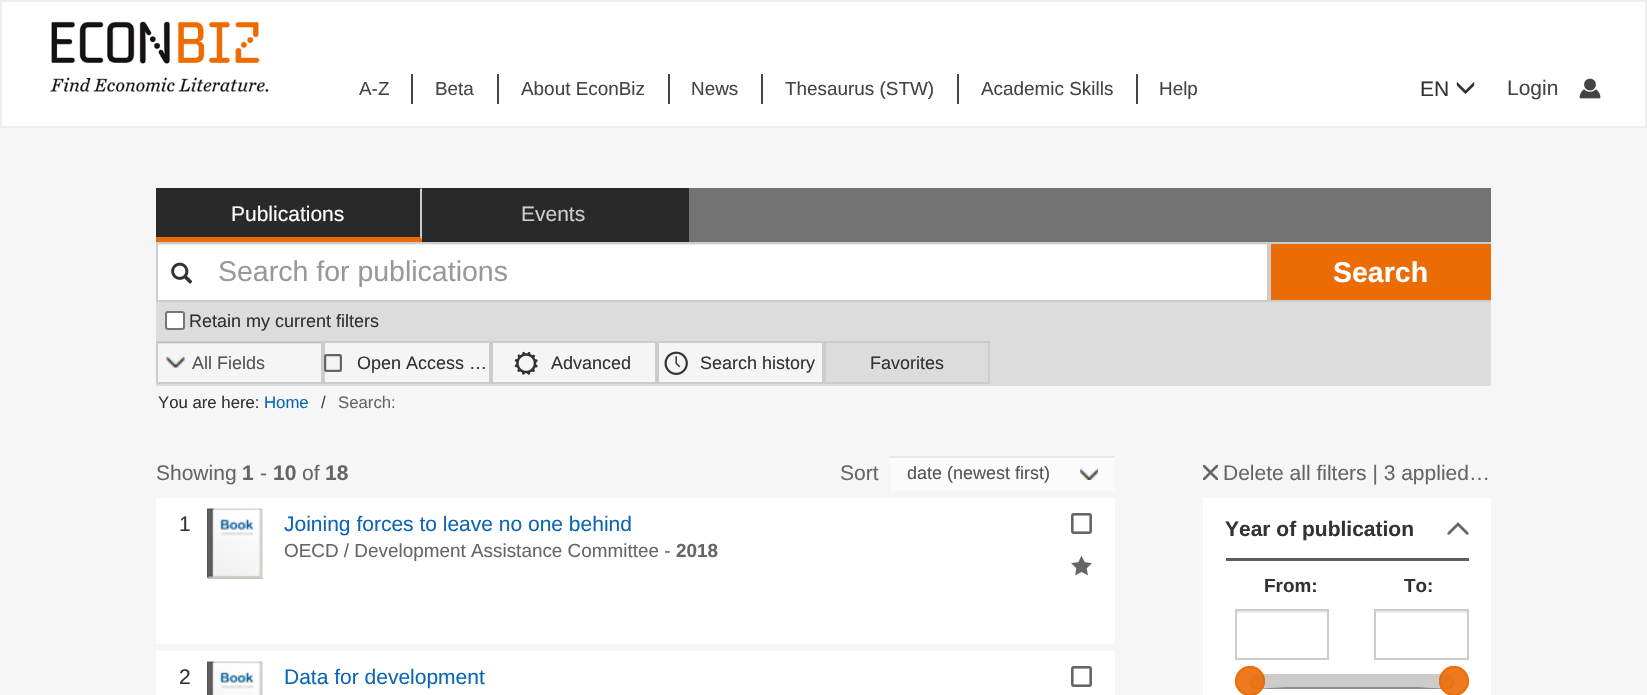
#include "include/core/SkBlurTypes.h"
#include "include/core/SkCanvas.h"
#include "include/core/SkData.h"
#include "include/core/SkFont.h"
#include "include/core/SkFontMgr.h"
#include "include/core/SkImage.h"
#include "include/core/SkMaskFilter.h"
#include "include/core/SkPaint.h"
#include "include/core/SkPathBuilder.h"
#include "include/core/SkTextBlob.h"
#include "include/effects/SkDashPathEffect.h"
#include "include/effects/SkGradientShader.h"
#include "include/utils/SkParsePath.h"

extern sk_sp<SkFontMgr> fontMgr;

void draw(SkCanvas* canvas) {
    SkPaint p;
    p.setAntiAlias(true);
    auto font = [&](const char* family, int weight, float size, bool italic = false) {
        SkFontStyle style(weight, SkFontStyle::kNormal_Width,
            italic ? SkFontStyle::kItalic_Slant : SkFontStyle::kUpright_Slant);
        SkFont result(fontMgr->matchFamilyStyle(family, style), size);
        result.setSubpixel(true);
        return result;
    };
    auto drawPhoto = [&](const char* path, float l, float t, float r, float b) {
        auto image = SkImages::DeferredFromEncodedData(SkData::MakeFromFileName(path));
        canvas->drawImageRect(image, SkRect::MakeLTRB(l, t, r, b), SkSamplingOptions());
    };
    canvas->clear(0xFFF6F6F6);
    p.setColor(0xFFFFFFFF);
    canvas->drawRect(SkRect::MakeLTRB(1, 1, 1646, 127), p);
    p.setStyle(SkPaint::kStroke_Style);
    p.setStrokeWidth(2);
    p.setColor(0xFFEEEEEE);
    canvas->drawRect(SkRect::MakeLTRB(1, 1, 1646, 127), p);
    drawPhoto("media/1.png", 50, 21, 269, 93);
    auto font1 = font("Liberation Sans", 400, 18.9f);
    p.setStyle(SkPaint::kFill_Style);
    p.setColor(0xFF444444);
    canvas->drawString("A-Z", 359, 95, font1, p);
    canvas->drawRect(SkRect::MakeLTRB(411, 74, 413, 104), p);
    canvas->drawString("Beta", 435, 95, font1, p);
    canvas->drawRect(SkRect::MakeLTRB(497, 74, 499, 104), p);
    canvas->drawString("About EconBiz", 521, 95, font1, p);
    canvas->drawRect(SkRect::MakeLTRB(668, 74, 670, 104), p);
    canvas->drawString("News", 691, 95, font1, p);
    canvas->drawRect(SkRect::MakeLTRB(761, 74, 763, 104), p);
    canvas->drawString("Thesaurus (STW)", 785, 95, font1, p);
    canvas->drawRect(SkRect::MakeLTRB(957, 74, 959, 104), p);
    canvas->drawString("Academic Skills", 981, 95, font1, p);
    canvas->drawRect(SkRect::MakeLTRB(1136, 74, 1138, 104), p);
    canvas->drawString("Help", 1159, 95, font1, p);
    auto font2 = font("Liberation Sans", 400, 21);
    p.setColor(0xFF333333);
    canvas->drawString("EN", 1420, 96, font2, p);
    drawPhoto("media/2.png", 1456, 82, 1475, 94);
    p.setColor(0xFF444444);
    canvas->drawString("Login", 1507, 95, font2, p);
    drawPhoto("media/3.png", 1579, 78, 1601, 99);
    p.setColor(0xFF737373);
    canvas->drawRect(SkRect::MakeLTRB(420, 188, 1491, 242), p);
    p.setColor(0xFF292929);
    canvas->drawRect(SkRect::MakeLTRB(156, 189, 420, 237), p);
    canvas->drawPath(SkPathBuilder().moveTo(156, 188).lineTo(423, 188).lineTo(420, 189).lineTo(156, 189).close().detach(), p);
    p.setColor(0xFFCCCCCC);
    canvas->drawPath(SkPathBuilder().moveTo(423, 188).lineTo(423, 242).lineTo(420, 237).lineTo(420, 189).close().detach(), p);
    p.setColor(0xFFEB6B05);
    canvas->drawPath(SkPathBuilder().moveTo(423, 242).lineTo(156, 242).lineTo(156, 237).lineTo(420, 237).close().detach(), p);
    p.setColor(0xFFFFFFFF);
    canvas->drawString("Publications", 231, 221, font2, p);
    {
        const struct { float l, t, r, b; SkColor color; } items[] = {
            {422, 190, 686, 237, 0xFF292929},
            {422, 188, 689, 190, 0xFF292929},
            {686, 188, 689, 242, 0xFF292929},
            {422, 237, 689, 242, 0xFF292929},
        };
        for (auto [l, t, r, b, color] : items) {
            p.setColor(color);
            canvas->drawRect(SkRect::MakeLTRB(l, t, r, b), p);
        }
    }
    p.setColor(0xFFCCCCCC);
    canvas->drawString("Events", 521, 221, font2, p);
    p.setColor(0xFFFFFFFF);
    canvas->drawRect(SkRect::MakeLTRB(158, 245, 1267, 300), p);
    p.setColor(0xFFECECEC);
    canvas->drawRect(SkRect::MakeLTRB(158, 244, 1268, 245), p);
    p.setStyle(SkPaint::kStroke_Style);
    p.setColor(0xFFCCCCCC);
    canvas->drawRect(SkRect::MakeLTRB(157, 243, 1268, 301), p);
    drawPhoto("media/4.png", 171, 262, 193, 284);
    auto font3 = font("Liberation Sans", 400, 28.5f);
    p.setStyle(SkPaint::kFill_Style);
    p.setColor(0xFF999999);
    canvas->drawString("Search for publications", 218, 281, font3, p);
    {
        const struct { float l, t, r, b; SkColor color; } items[] = {
            {1271, 244, 1491, 300, 0xFFEB6B05},
            {1269, 242, 1491, 244, 0xFFCCCCCC},
            {1269, 300, 1491, 302, 0xFFCCCCCC},
            {1269, 242, 1271, 302, 0xFFCCCCCC},
        };
        for (auto [l, t, r, b, color] : items) {
            p.setColor(color);
            canvas->drawRect(SkRect::MakeLTRB(l, t, r, b), p);
        }
    }
    auto font4 = font("Liberation Sans", 700, 28.5f);
    p.setColor(0xFFFFFFFF);
    canvas->drawString("Search", 1333, 282, font4, p);
    p.setColor(0xFFDCDCDC);
    canvas->drawRect(SkRect::MakeLTRB(156, 302, 1491, 386), p);
    p.setColor(0xFFFFFFFF);
    canvas->drawRoundRect(SkRect::MakeLTRB(166, 312, 184, 329), 2, 2, p);
    p.setStyle(SkPaint::kStroke_Style);
    p.setColor(0xFF767676);
    canvas->drawRoundRect(SkRect::MakeLTRB(166, 312, 184, 329), 2, 2, p);
    auto font5 = font("Liberation Sans", 400, 18);
    p.setStyle(SkPaint::kFill_Style);
    p.setColor(0xFF333333);
    canvas->drawString("Retain my current filters", 189, 327, font5, p);
    p.setColor(0xFFF5F5F5);
    canvas->drawRect(SkRect::MakeLTRB(157, 342, 322, 383), p);
    p.setStyle(SkPaint::kStroke_Style);
    p.setColor(0xFFCCCCCC);
    canvas->drawRect(SkRect::MakeLTRB(157, 342, 322, 383), p);
    drawPhoto("media/5.png", 166, 356, 185, 368);
    p.setStyle(SkPaint::kFill_Style);
    p.setColor(0x12000000);
    canvas->drawRect(SkRect::MakeLTRB(158, 342, 321, 344), p);
    p.setColor(0xFF555555);
    canvas->drawString("All Fields", 192, 369, font5, p);
    p.setColor(0xFFF5F5F5);
    canvas->drawRect(SkRect::MakeLTRB(324, 342, 490, 383), p);
    p.setStyle(SkPaint::kStroke_Style);
    p.setColor(0xFFCCCCCC);
    canvas->drawRect(SkRect::MakeLTRB(324, 342, 490, 383), p);
    drawPhoto("media/6.png", 324, 354, 342, 372);
    p.setStyle(SkPaint::kFill_Style);
    p.setColor(0xFF333333);
    canvas->drawString("Open Access …", 357, 369, font5, p);
    p.setColor(0xFFF5F5F5);
    canvas->drawRect(SkRect::MakeLTRB(492, 342, 656, 383), p);
    p.setStyle(SkPaint::kStroke_Style);
    p.setColor(0xFFCCCCCC);
    canvas->drawRect(SkRect::MakeLTRB(492, 342, 656, 383), p);
    drawPhoto("media/7.png", 514, 351, 538, 375);
    p.setStyle(SkPaint::kFill_Style);
    p.setColor(0xFF333333);
    canvas->drawString("Advanced", 551, 369, font5, p);
    p.setColor(0xFFF5F5F5);
    canvas->drawRect(SkRect::MakeLTRB(658, 342, 823, 383), p);
    p.setStyle(SkPaint::kStroke_Style);
    p.setColor(0xFFCCCCCC);
    canvas->drawRect(SkRect::MakeLTRB(658, 342, 823, 383), p);
    drawPhoto("media/8.png", 664, 351, 688, 375);
    p.setStyle(SkPaint::kFill_Style);
    p.setColor(0xFF333333);
    canvas->drawString("Search history", 700, 369, font5, p);
    p.setStyle(SkPaint::kStroke_Style);
    p.setColor(0xFFCCCCCC);
    canvas->drawRect(SkRect::MakeLTRB(825, 342, 989, 383), p);
    p.setStyle(SkPaint::kFill_Style);
    p.setColor(0xFF333333);
    canvas->drawString("Favorites", 870, 369, font5, p);
    auto font6 = font("Liberation Sans", 400, 16.75f);
    canvas->drawString("You are here:", 158, 408, font6, p);
    p.setColor(0xFF0C66B5);
    canvas->drawString("Home", 264, 408, font6, p);
    p.setColor(0xFF444444);
    canvas->drawString("/", 321, 408, font6, p);
    p.setColor(0xFF666666);
    canvas->drawString("Search:", 338, 408, font6, p);
    canvas->drawString("Showing", 156, 480, font2, p);
    auto font7 = font("Liberation Sans", 700, 21);
    canvas->drawString("1", 242, 480, font7, p);
    canvas->drawString("-", 260, 480, font2, p);
    canvas->drawString("10", 273, 480, font7, p);
    canvas->drawString("of", 302, 480, font2, p);
    canvas->drawString("18", 325, 480, font7, p);
    canvas->drawString("Sort", 840, 480, font2, p);
    p.setColor(0xFFFBFBFB);
    canvas->drawRect(SkRect::MakeLTRB(890, 458, 1115, 491), p);
    drawPhoto("media/9.png", 1080, 468, 1098, 480);
    p.setColor(0xFFE8E8E8);
    canvas->drawRect(SkRect::MakeLTRB(890, 456, 1115, 458), p);
    p.setColor(0xFF555555);
    canvas->drawString("date (newest first)", 907, 479, font5, p);
    p.setColor(0xFFFFFFFF);
    canvas->drawRect(SkRect::MakeLTRB(156, 498, 1115, 644), p);
    p.setColor(0xFF333333);
    canvas->drawString("1", 179, 531, font2, p);
    drawPhoto("media/10.png", 207, 508, 263, 579);
    p.setColor(0xFF0C66B5);
    canvas->drawString("Joining forces to leave no one behind", 284, 531, font2, p);
    p.setColor(0xFF666666);
    canvas->drawString("OECD / Development Assistance Committee -", 284, 557, font1, p);
    auto font8 = font("Liberation Sans", 700, 18.9f);
    canvas->drawString("2018", 676, 557, font8, p);
    drawPhoto("media/11.png", 1071, 513, 1092, 534);
    drawPhoto("media/12.png", 1071, 555, 1092, 576);
    p.setColor(0xFFFFFFFF);
    canvas->drawRect(SkRect::MakeLTRB(156, 651, 1115, 695), p);
    p.setColor(0xFF333333);
    canvas->drawString("2", 179, 684, font2, p);
    drawPhoto("media/13.png", 207, 661, 263, 695);
    p.setColor(0xFF0C66B5);
    canvas->drawString("Data for development", 284, 684, font2, p);
    drawPhoto("media/11.png", 1071, 666, 1092, 687);
    drawPhoto("media/14.png", 1203, 465, 1218, 480);
    p.setColor(0xFF666666);
    canvas->drawString("Delete all filters | 3 applied…", 1223, 480, font2, p);
    p.setColor(0xFFFFFFFF);
    canvas->drawRect(SkRect::MakeLTRB(1203, 498, 1491, 695), p);
    p.setColor(0xFF5E5E5E);
    canvas->drawRect(SkRect::MakeLTRB(1226, 558, 1469, 561), p);
    p.setColor(0xFF333333);
    canvas->drawString("Year of publication", 1225, 536, font7, p);
    drawPhoto("media/15.png", 1447, 522, 1469, 535);
    canvas->drawString("From:", 1264, 592, font8, p);
    p.setColor(0xFFECECEC);
    canvas->drawRect(SkRect::MakeLTRB(1236, 611, 1328, 613), p);
    p.setStyle(SkPaint::kStroke_Style);
    p.setColor(0xFFCCCCCC);
    canvas->drawRect(SkRect::MakeLTRB(1236, 610, 1328, 659), p);
    p.setStyle(SkPaint::kFill_Style);
    p.setColor(0xFF333333);
    canvas->drawString("To:", 1404, 592, font8, p);
    p.setColor(0xFFECECEC);
    canvas->drawRect(SkRect::MakeLTRB(1376, 611, 1467, 613), p);
    p.setStyle(SkPaint::kStroke_Style);
    p.setColor(0xFFCCCCCC);
    canvas->drawRect(SkRect::MakeLTRB(1375, 610, 1468, 659), p);
    p.setStyle(SkPaint::kFill_Style);
    canvas->drawRoundRect(SkRect::MakeLTRB(1250, 674, 1454, 689), 6, 6, p);
    p.setColor(0x4D000000);
    canvas->drawPath(SkPathBuilder().moveTo(1250, 681).cubicTo(1250, 685, 1251, 689, 1256, 689).lineTo(1448, 689).cubicTo(1453, 689, 1455, 683, 1454, 679).cubicTo(1454, 683, 1452, 686, 1448, 687).cubicTo(1438, 690, 1427, 687, 1417, 687).lineTo(1287, 687).lineTo(1268, 688).cubicTo(1263, 689, 1250, 689, 1250, 681).close().detach(), p);
    p.setColor(0xE6EB6B05);
    canvas->drawCircle(1250, 681, 15, p);
    p.setStyle(SkPaint::kStroke_Style);
    canvas->drawCircle(1250, 681, 14, p);
    p.setStyle(SkPaint::kFill_Style);
    canvas->drawCircle(1454, 681, 15, p);
    p.setStyle(SkPaint::kStroke_Style);
    canvas->drawCircle(1454, 681, 14, p);
}
